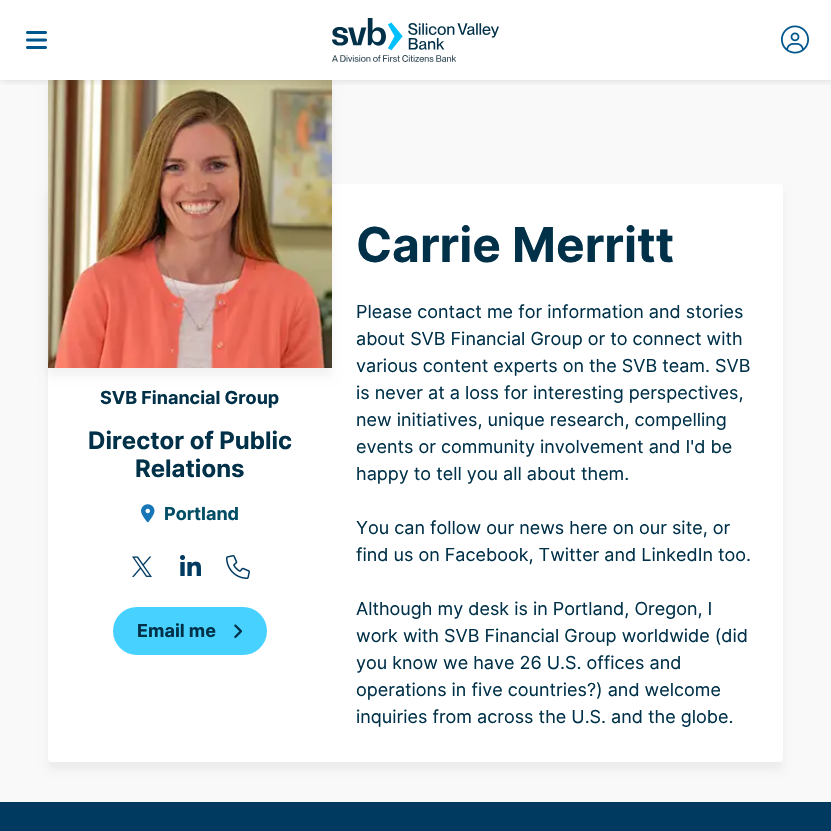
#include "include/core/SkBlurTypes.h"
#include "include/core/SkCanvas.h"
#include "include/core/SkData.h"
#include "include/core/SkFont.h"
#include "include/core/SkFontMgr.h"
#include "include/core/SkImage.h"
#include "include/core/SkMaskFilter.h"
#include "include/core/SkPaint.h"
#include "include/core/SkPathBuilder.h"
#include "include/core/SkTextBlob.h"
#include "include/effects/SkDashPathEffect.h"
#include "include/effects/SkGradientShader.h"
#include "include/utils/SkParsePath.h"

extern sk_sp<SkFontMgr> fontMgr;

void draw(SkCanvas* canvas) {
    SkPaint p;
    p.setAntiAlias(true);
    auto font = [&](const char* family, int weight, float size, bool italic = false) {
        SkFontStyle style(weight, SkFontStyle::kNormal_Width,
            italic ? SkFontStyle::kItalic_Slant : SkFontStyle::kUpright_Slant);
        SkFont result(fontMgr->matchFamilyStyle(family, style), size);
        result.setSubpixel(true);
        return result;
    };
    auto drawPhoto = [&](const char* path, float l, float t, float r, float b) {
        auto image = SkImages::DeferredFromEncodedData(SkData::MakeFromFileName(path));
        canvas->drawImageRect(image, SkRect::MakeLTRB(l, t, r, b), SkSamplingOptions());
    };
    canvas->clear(0xFF003A61);
    p.setColor(0xFFF9F9F9);
    canvas->drawRect(SkRect::MakeLTRB(0, 80, 831, 802), p);
    p.setColor(0x0D000000);
    p.setMaskFilter(SkMaskFilter::MakeBlur(kNormal_SkBlurStyle, 4));
    canvas->drawRoundRect(SkRect::MakeLTRB(48, 192, 783, 770), 4, 4, p);
    p.setMaskFilter(nullptr);
    p.setColor(0xFFFFFFFF);
    canvas->drawRoundRect(SkRect::MakeLTRB(48, 184, 783, 762), 4, 4, p);
    p.setColor(0x0D000000);
    p.setMaskFilter(SkMaskFilter::MakeBlur(kNormal_SkBlurStyle, 4));
    canvas->drawRect(SkRect::MakeLTRB(48, 86, 332, 376), p);
    p.setMaskFilter(nullptr);
    p.setColor(0xFFFFFFFF);
    canvas->drawRect(SkRect::MakeLTRB(0, 0, 831, 80), p);
    drawPhoto("media/4.png", 48, 80, 332, 368);
    canvas->save();
    canvas->clipRect(SkRect::MakeLTRB(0, 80, 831, 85));
    p.setColor(0x263A3A3A);
    p.setMaskFilter(SkMaskFilter::MakeBlur(kNormal_SkBlurStyle, 4));
    canvas->drawRect(SkRect::MakeLTRB(1, 1, 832, 81), p);
    p.setMaskFilter(nullptr);
    canvas->restore();
    drawPhoto("media/1.png", 26, 31, 47, 49);
    drawPhoto("media/2.png", 332, 18, 499, 62);
    drawPhoto("media/3.png", 781, 25, 809, 54);
    auto font1 = font("Inter", 700, 48);
    p.setColor(0xFF003149);
    canvas->drawString("Carrie Merritt", 356, 262, font1, p);
    auto font2 = font("Inter", 700, 18);
    canvas->drawString("SVB Financial Group", 100, 404, font2, p);
    auto font3 = font("Inter", 700, 24);
    canvas->drawString("Director of Public", 88, 449, font3, p);
    canvas->drawString("Relations", 135, 477, font3, p);
    drawPhoto("media/5.png", 141, 504, 155, 523);
    p.setColor(0xFF004D66);
    canvas->drawString("Portland", 164, 520, font2, p);
    drawPhoto("media/6.png", 132, 556, 152, 577);
    drawPhoto("media/7.png", 180, 555, 201, 576);
    drawPhoto("media/8.png", 226, 555, 250, 579);
    p.setColor(0xFF47D1FF);
    canvas->drawRoundRect(SkRect::MakeLTRB(113, 607, 267, 655), 24, 24, p);
    p.setColor(0xFF003149);
    canvas->drawString("Email me", 137, 637, font2, p);
    drawPhoto("media/9.png", 234, 624, 243, 638);
    auto font4 = font("Inter", 400, 18);
    {
        const struct { const char* s; float x, y; } items[] = {
            {"Please contact me for information and stories", 356, 318},
            {"about SVB Financial Group or to connect with", 356, 345},
            {"various content experts on the SVB team. SVB", 356, 372},
            {"is never at a loss for interesting perspectives,", 356, 399},
            {"new initiatives, unique research, compelling", 356, 426},
            {"events or community involvement and I'd be", 356, 453},
            {"happy to tell you all about them.", 356, 480},
            {"You can follow our news here on our site, or", 356, 534},
            {"find us on Facebook, Twitter and LinkedIn too.", 356, 561},
            {"Although my desk is in Portland, Oregon, I", 356, 615},
            {"work with SVB Financial Group worldwide (did", 356, 642},
            {"you know we have 26 U.S. offices and", 356, 669},
            {"operations in five countries?) and welcome", 356, 696},
            {"inquiries from across the U.S. and the globe.", 356, 723},
        };
        for (auto [s, x, y] : items) {
            canvas->drawString(s, x, y, font4, p);
        }
    }
}
